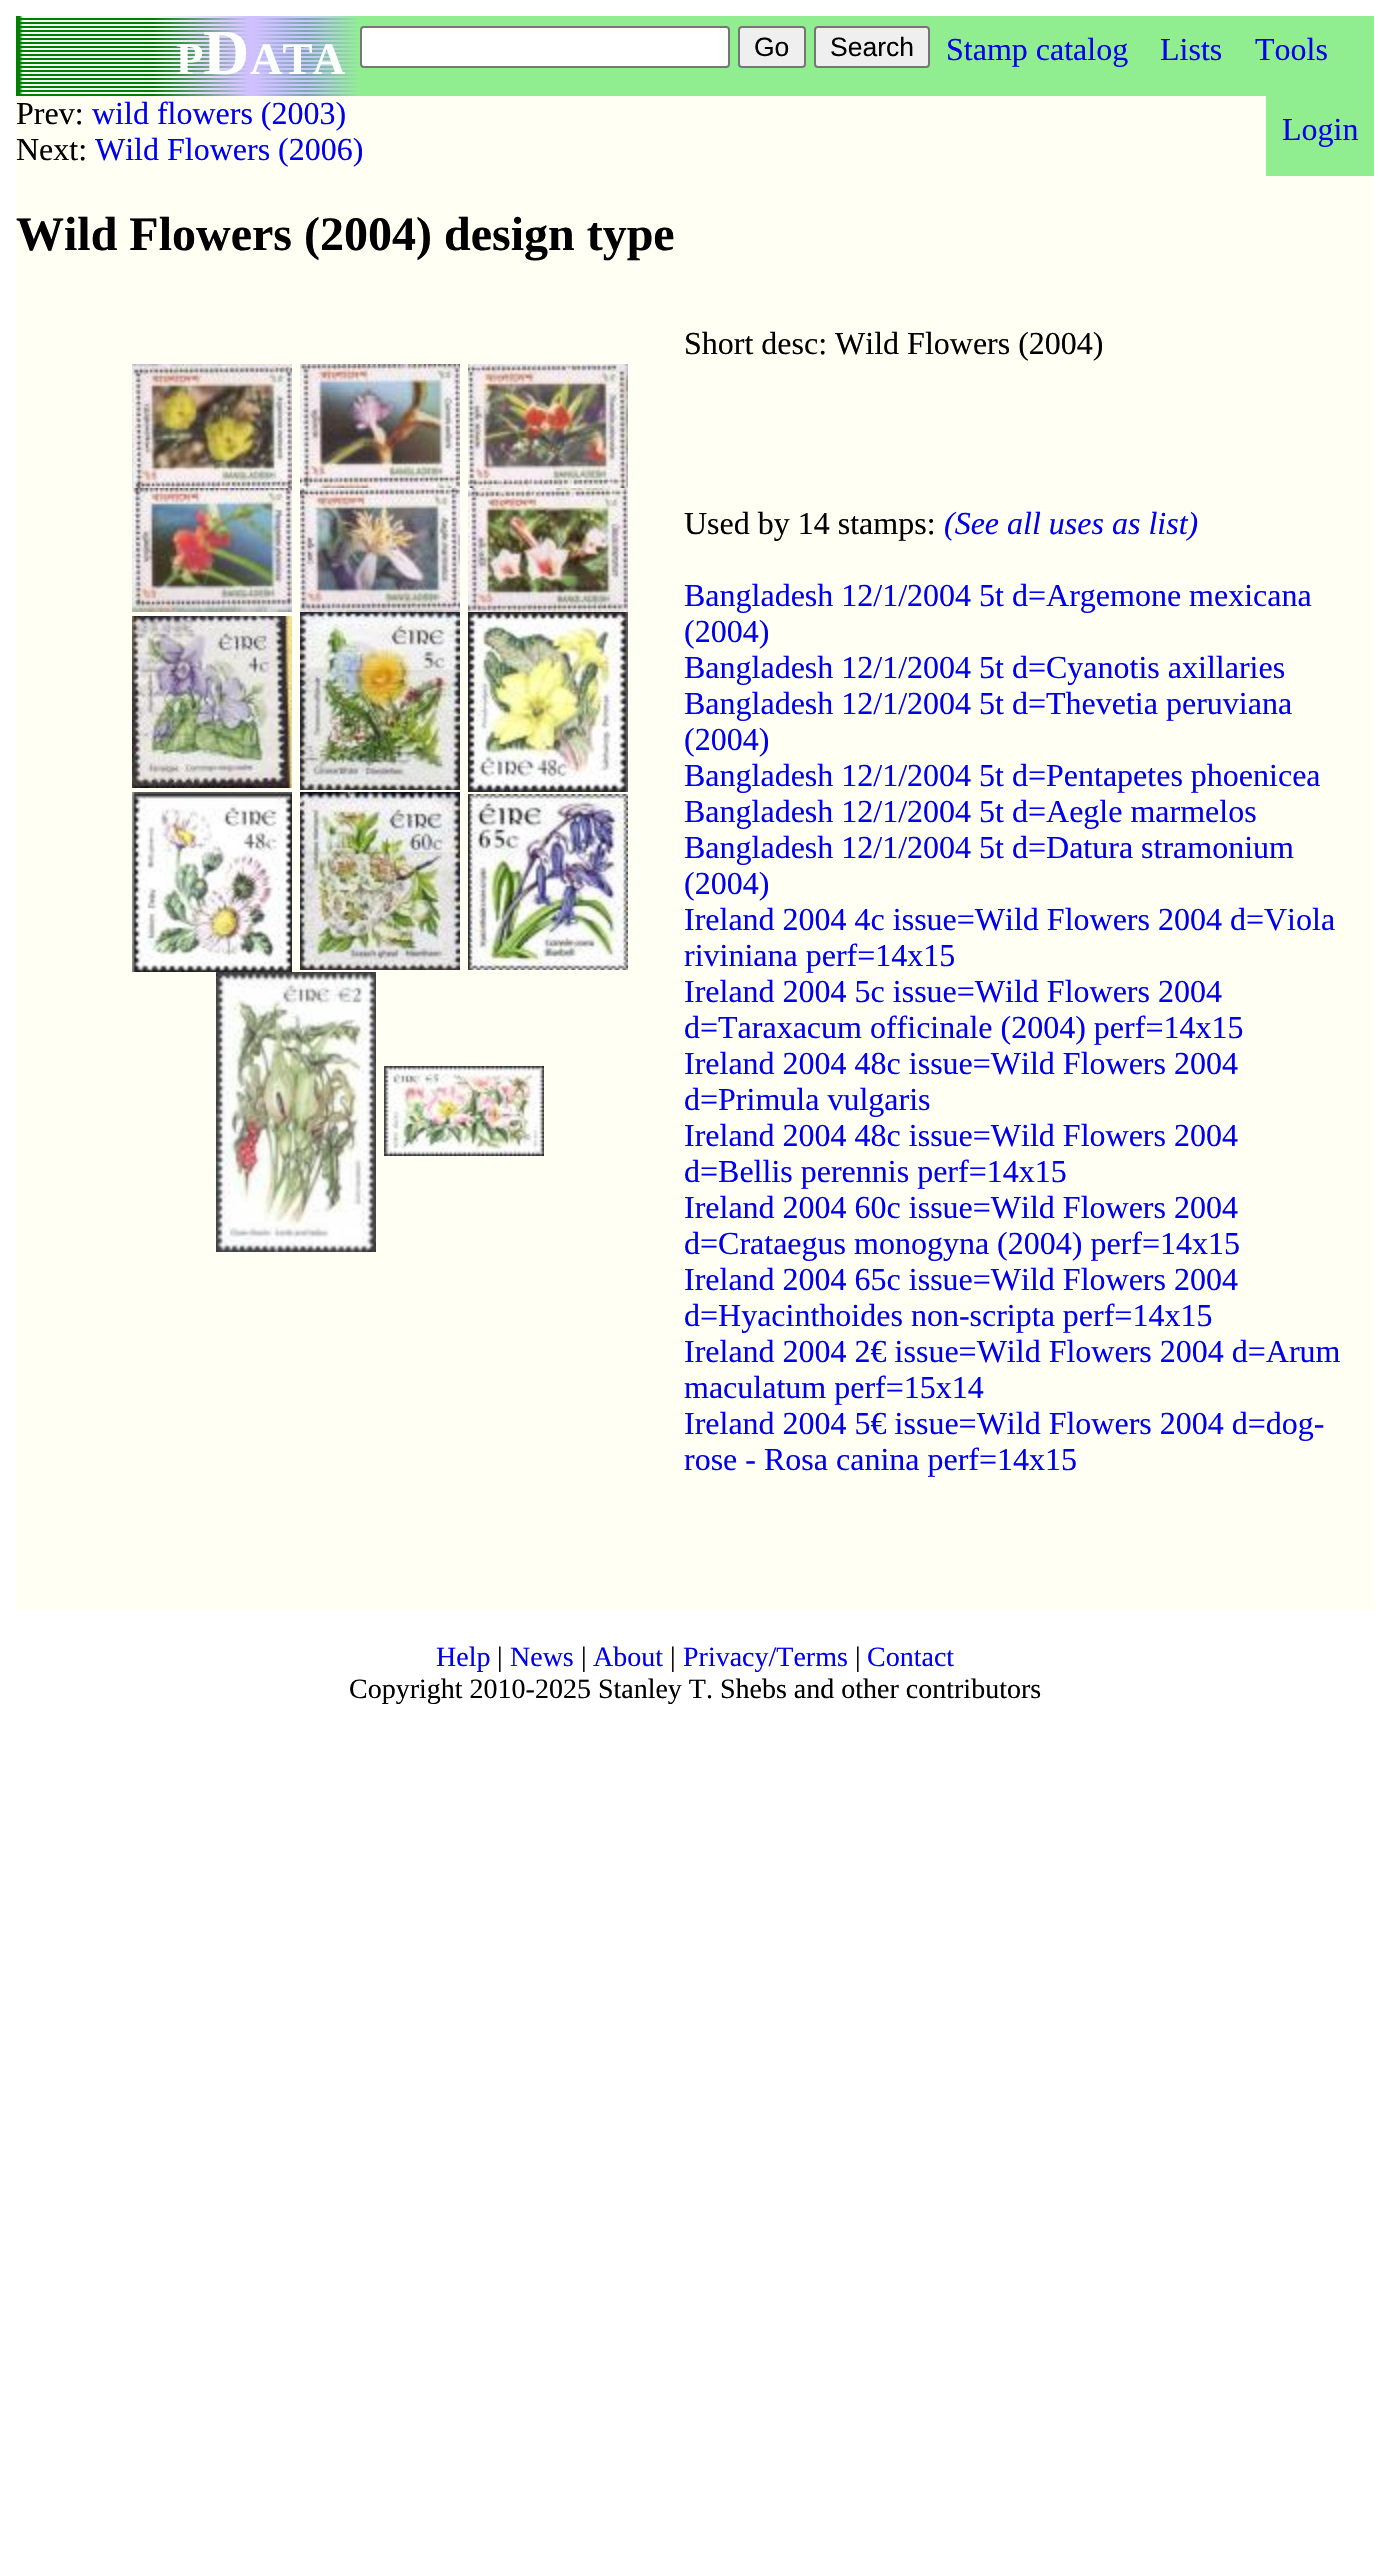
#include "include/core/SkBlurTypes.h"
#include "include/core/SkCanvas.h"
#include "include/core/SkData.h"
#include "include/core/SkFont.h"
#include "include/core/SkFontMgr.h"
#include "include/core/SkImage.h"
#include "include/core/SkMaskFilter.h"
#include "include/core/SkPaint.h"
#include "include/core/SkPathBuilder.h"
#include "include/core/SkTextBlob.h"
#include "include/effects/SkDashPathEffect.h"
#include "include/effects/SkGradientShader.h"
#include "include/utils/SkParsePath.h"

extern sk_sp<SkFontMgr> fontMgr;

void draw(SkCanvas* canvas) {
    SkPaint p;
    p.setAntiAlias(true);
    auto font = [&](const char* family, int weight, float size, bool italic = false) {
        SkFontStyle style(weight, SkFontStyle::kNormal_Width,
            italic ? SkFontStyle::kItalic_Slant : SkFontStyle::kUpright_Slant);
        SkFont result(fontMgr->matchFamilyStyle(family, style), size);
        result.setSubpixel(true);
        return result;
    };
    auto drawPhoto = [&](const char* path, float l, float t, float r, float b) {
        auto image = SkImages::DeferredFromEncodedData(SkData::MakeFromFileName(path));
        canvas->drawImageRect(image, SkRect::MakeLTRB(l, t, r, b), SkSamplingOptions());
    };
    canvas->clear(0xFFFFFFFF);
    p.setColor(0xFF90EE90);
    canvas->drawRect(SkRect::MakeLTRB(360, 16, 1374, 96), p);
    drawPhoto("media/1.png", 16, 16, 360, 96);
    auto font1 = font("Liberation Serif", 700, 45);
    p.setColor(0xFFFCFFFC);
    canvas->drawString("P", 176, 74, font1, p);
    auto font2 = font("Liberation Serif", 700, 64);
    canvas->drawString("D", 203, 74, font2, p);
    canvas->drawString("ATA", 250, 74, font1, p);
    p.setColor(0xFFFFFFFF);
    canvas->drawRoundRect(SkRect::MakeLTRB(361, 27, 729, 67), 3, 3, p);
    p.setStyle(SkPaint::kStroke_Style);
    p.setStrokeWidth(2);
    p.setColor(0xFF767676);
    canvas->drawRoundRect(SkRect::MakeLTRB(361, 27, 729, 67), 3, 3, p);
    p.setStyle(SkPaint::kFill_Style);
    p.setColor(0xFFEFEFEF);
    canvas->drawRoundRect(SkRect::MakeLTRB(739, 27, 805, 67), 3, 3, p);
    p.setStyle(SkPaint::kStroke_Style);
    p.setColor(0xFF767676);
    canvas->drawRoundRect(SkRect::MakeLTRB(739, 27, 805, 67), 3, 3, p);
    auto font3 = font("Liberation Sans", 400, 26.5f);
    p.setStyle(SkPaint::kFill_Style);
    p.setColor(0xFF000000);
    canvas->drawString("Go", 754, 56, font3, p);
    p.setColor(0xFFEFEFEF);
    canvas->drawRoundRect(SkRect::MakeLTRB(815, 27, 929, 67), 3, 3, p);
    p.setStyle(SkPaint::kStroke_Style);
    p.setColor(0xFF767676);
    canvas->drawRoundRect(SkRect::MakeLTRB(815, 27, 929, 67), 3, 3, p);
    p.setStyle(SkPaint::kFill_Style);
    p.setColor(0xFF000000);
    canvas->drawString("Search", 830, 56, font3, p);
    auto font4 = font("Liberation Serif", 400, 32);
    p.setColor(0xFF0000EE);
    {
        const struct { const char* s; float x, y; } items[] = {
            {"Stamp catalog", 946, 60},
            {"Lists", 1160, 60},
            {"Tools", 1255, 60},
        };
        for (auto [s, x, y] : items) {
            canvas->drawString(s, x, y, font4, p);
        }
    }
    p.setColor(0xFFFFFFF4);
    canvas->drawRect(SkRect::MakeLTRB(16, 96, 1374, 1610), p);
    p.setColor(0xFF90EE90);
    canvas->drawRect(SkRect::MakeLTRB(1266, 96, 1374, 176), p);
    p.setColor(0xFF0000EE);
    canvas->drawString("Login", 1282, 140, font4, p);
    p.setColor(0xFF000000);
    canvas->drawString("Prev:", 16, 124, font4, p);
    p.setColor(0xFF0000EE);
    canvas->drawString("wild flowers (2003)", 92, 124, font4, p);
    p.setColor(0xFF000000);
    canvas->drawString("Next:", 16, 160, font4, p);
    p.setColor(0xFF0000EE);
    canvas->drawString("Wild Flowers (2006)", 95, 160, font4, p);
    auto font5 = font("Liberation Serif", 700, 48);
    p.setColor(0xFF000000);
    canvas->drawString("Wild Flowers (2004) design type", 16, 250, font5, p);
    drawPhoto("media/2.png", 132, 364, 292, 488);
    drawPhoto("media/3.png", 300, 364, 460, 488);
    drawPhoto("media/4.png", 468, 364, 628, 488);
    drawPhoto("media/5.png", 132, 488, 292, 612);
    drawPhoto("media/6.png", 300, 488, 460, 612);
    drawPhoto("media/7.png", 468, 488, 628, 612);
    drawPhoto("media/8.png", 132, 616, 292, 788);
    drawPhoto("media/9.png", 300, 612, 460, 790);
    drawPhoto("media/10.png", 468, 612, 628, 792);
    drawPhoto("media/11.png", 132, 792, 292, 972);
    drawPhoto("media/12.png", 300, 792, 460, 970);
    drawPhoto("media/13.png", 468, 794, 628, 970);
    drawPhoto("media/14.png", 216, 972, 376, 1252);
    drawPhoto("media/15.png", 384, 1066, 544, 1156);
    canvas->drawString("Short desc: Wild Flowers (2004)", 684, 354, font4, p);
    canvas->drawString("Used by 14 stamps:", 684, 534, font4, p);
    auto font6 = font("Liberation Serif", 400, 32, true);
    p.setColor(0xFF0000EE);
    canvas->drawString("(See all uses as list)", 944, 534, font6, p);
    {
        const struct { const char* s; float x, y; } items[] = {
            {"Bangladesh 12/1/2004 5t d=Argemone mexicana", 684, 606},
            {"(2004)", 684, 642},
            {"Bangladesh 12/1/2004 5t d=Cyanotis axillaries", 684, 678},
            {"Bangladesh 12/1/2004 5t d=Thevetia peruviana", 684, 714},
            {"(2004)", 684, 750},
            {"Bangladesh 12/1/2004 5t d=Pentapetes phoenicea", 684, 786},
            {"Bangladesh 12/1/2004 5t d=Aegle marmelos", 684, 822},
            {"Bangladesh 12/1/2004 5t d=Datura stramonium", 684, 858},
            {"(2004)", 684, 894},
            {"Ireland 2004 4c issue=Wild Flowers 2004 d=Viola", 684, 930},
            {"riviniana perf=14x15", 684, 966},
            {"Ireland 2004 5c issue=Wild Flowers 2004", 684, 1002},
            {"d=Taraxacum officinale (2004) perf=14x15", 684, 1038},
            {"Ireland 2004 48c issue=Wild Flowers 2004", 684, 1074},
            {"d=Primula vulgaris", 684, 1110},
            {"Ireland 2004 48c issue=Wild Flowers 2004", 684, 1146},
            {"d=Bellis perennis perf=14x15", 684, 1182},
            {"Ireland 2004 60c issue=Wild Flowers 2004", 684, 1218},
            {"d=Crataegus monogyna (2004) perf=14x15", 684, 1254},
            {"Ireland 2004 65c issue=Wild Flowers 2004", 684, 1290},
            {"d=Hyacinthoides non-scripta perf=14x15", 684, 1326},
            {"Ireland 2004 2€ issue=Wild Flowers 2004 d=Arum", 684, 1362},
            {"maculatum perf=15x14", 684, 1398},
            {"Ireland 2004 5€ issue=Wild Flowers 2004 d=dog-", 684, 1434},
            {"rose - Rosa canina perf=14x15", 684, 1470},
        };
        for (auto [s, x, y] : items) {
            canvas->drawString(s, x, y, font4, p);
        }
    }
    auto font7 = font("Liberation Serif", 400, 28);
    canvas->drawString("Help", 436, 1666, font7, p);
    p.setColor(0xFF000000);
    canvas->drawString("|", 497, 1666, font7, p);
    p.setColor(0xFF0000EE);
    canvas->drawString("News", 510, 1666, font7, p);
    p.setColor(0xFF000000);
    canvas->drawString("|", 581, 1666, font7, p);
    p.setColor(0xFF0000EE);
    canvas->drawString("About", 593, 1666, font7, p);
    p.setColor(0xFF000000);
    canvas->drawString("|", 670, 1666, font7, p);
    p.setColor(0xFF0000EE);
    canvas->drawString("Privacy/Terms", 683, 1666, font7, p);
    p.setColor(0xFF000000);
    canvas->drawString("|", 855, 1666, font7, p);
    p.setColor(0xFF0000EE);
    canvas->drawString("Contact", 867, 1666, font7, p);
    p.setColor(0xFF000000);
    canvas->drawString("Copyright 2010-2025 Stanley T. Shebs and other contributors", 349, 1698, font7, p);
}
